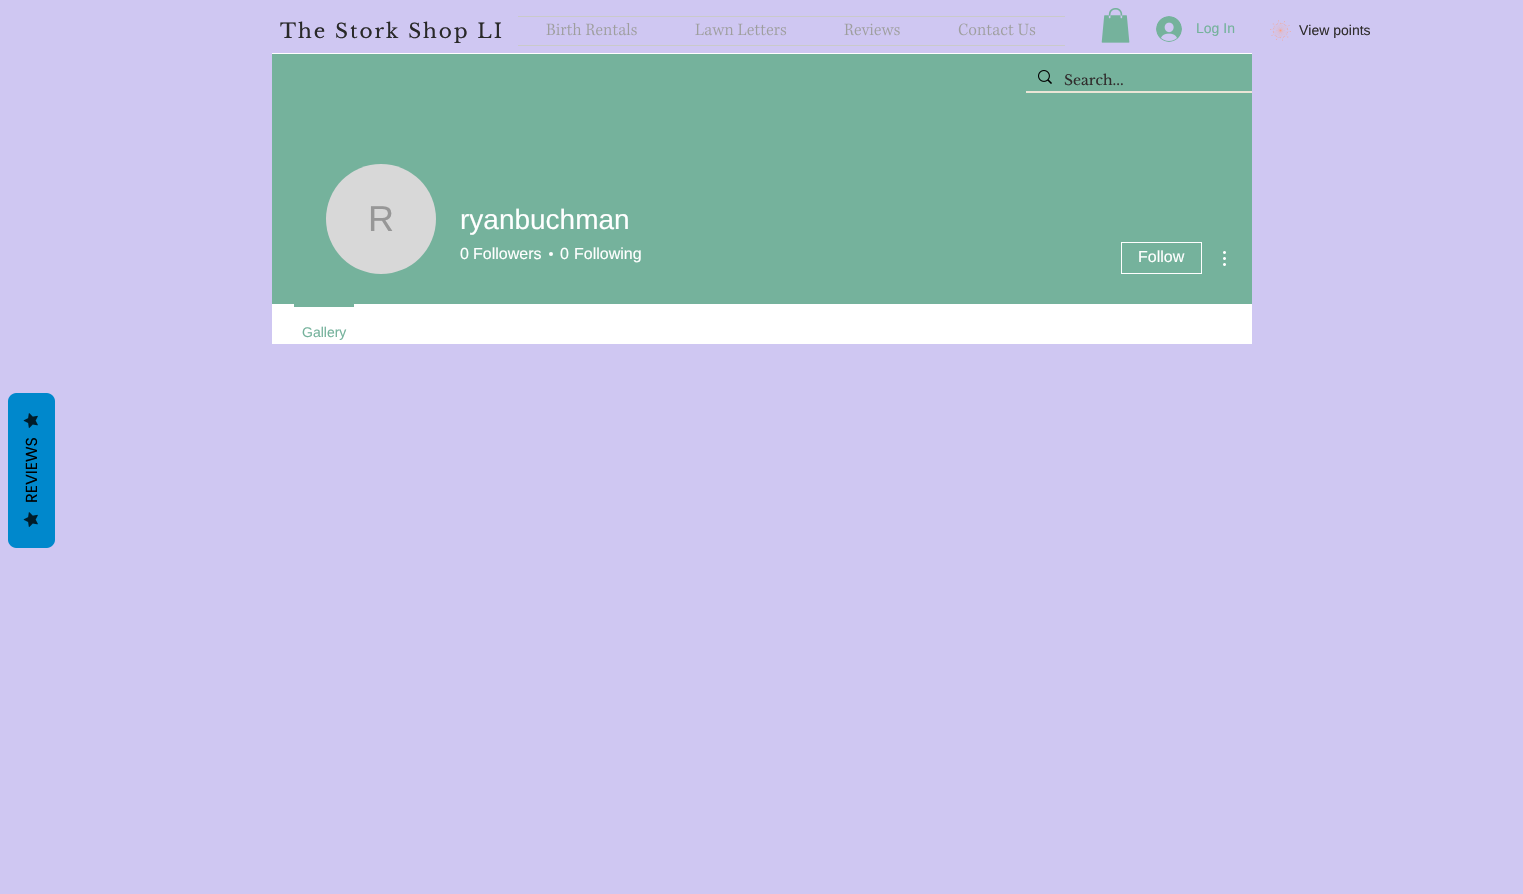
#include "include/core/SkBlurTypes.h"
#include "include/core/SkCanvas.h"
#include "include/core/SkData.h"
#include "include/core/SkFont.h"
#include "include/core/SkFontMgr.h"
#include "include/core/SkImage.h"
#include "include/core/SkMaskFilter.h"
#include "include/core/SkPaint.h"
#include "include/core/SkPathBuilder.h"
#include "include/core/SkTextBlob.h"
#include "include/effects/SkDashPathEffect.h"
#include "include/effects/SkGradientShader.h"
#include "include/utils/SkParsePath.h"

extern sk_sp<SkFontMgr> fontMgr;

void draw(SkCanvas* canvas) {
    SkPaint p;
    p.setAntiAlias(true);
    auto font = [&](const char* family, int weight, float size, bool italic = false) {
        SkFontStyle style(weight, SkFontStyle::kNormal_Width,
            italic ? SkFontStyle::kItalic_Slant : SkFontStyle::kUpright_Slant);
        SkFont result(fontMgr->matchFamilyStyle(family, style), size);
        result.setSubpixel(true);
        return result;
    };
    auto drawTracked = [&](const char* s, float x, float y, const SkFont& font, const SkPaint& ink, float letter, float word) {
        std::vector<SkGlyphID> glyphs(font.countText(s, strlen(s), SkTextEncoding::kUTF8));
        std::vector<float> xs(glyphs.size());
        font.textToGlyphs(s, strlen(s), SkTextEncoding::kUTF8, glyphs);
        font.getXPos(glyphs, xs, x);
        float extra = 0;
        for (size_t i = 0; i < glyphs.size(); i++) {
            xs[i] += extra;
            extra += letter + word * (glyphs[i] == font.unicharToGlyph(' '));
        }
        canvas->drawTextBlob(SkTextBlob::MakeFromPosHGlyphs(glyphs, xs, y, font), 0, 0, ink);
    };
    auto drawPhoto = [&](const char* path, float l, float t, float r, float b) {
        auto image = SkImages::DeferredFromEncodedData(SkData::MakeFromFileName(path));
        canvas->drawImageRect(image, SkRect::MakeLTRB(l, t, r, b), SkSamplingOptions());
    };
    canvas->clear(0xFFCFC7F2);
    auto font1 = font("Libre Baskerville", 400, 20);
    p.setColor(0xFF292929);
    drawTracked("The Stork Shop LI", 280, 38, font1, p, 2, 0);
    p.setColor(0xFFCACACA);
    canvas->drawRect(SkRect::MakeLTRB(518, 16, 1065, 17), p);
    canvas->drawRect(SkRect::MakeLTRB(518, 45, 1065, 46), p);
    drawPhoto("media/1.png", 546, 23, 637, 36);
    drawPhoto("media/2.png", 695, 23, 787, 36);
    drawPhoto("media/3.png", 844, 23, 900, 36);
    drawPhoto("media/4.png", 958, 23, 1036, 36);
    drawPhoto("media/5.png", 1101, 8, 1130, 43);
    drawPhoto("media/6.png", 1156, 16, 1182, 42);
    auto font2 = font("Liberation Sans", 400, 14);
    p.setColor(0xFF75B29C);
    canvas->drawString("Log In", 1196, 33, font2, p);
    drawPhoto("media/7.png", 1270, 20, 1291, 41);
    p.setColor(0xFF302D2D);
    canvas->drawString("View points", 1299, 35, font2, p);
    {
        const struct { float l, t, r, b; SkColor color; } items[] = {
            {272, 53, 1252, 344, 0xFFFFFFFF},
            {272, 54, 1252, 304, 0xFF75B29C},
            {1026, 91, 1252, 93, 0xFFEBE5D6},
        };
        for (auto [l, t, r, b, color] : items) {
            p.setColor(color);
            canvas->drawRect(SkRect::MakeLTRB(l, t, r, b), p);
        }
    }
    drawPhoto("media/8.png", 1038, 70, 1052, 84);
    auto font3 = font("Libre Baskerville", 400, 14);
    p.setColor(0xFF302D2D);
    canvas->drawString("Search...", 1064, 85, font3, p);
    p.setColor(0xFFD8D8D8);
    canvas->drawCircle(381, 219, 55, p);
    auto font4 = font("Liberation Sans", 400, 36);
    p.setColor(0xFF979797);
    canvas->drawString("R", 368, 231, font4, p);
    auto font5 = font("Liberation Sans", 400, 28);
    p.setColor(0xFFFFFFFF);
    canvas->drawString("ryanbuchman", 460, 229, font5, p);
    auto font6 = font("Liberation Sans", 400, 16);
    canvas->drawString("0", 460, 259, font6, p);
    canvas->drawString("Followers", 473, 259, font6, p);
    canvas->drawCircle(551, 254, 2, p);
    canvas->drawString("0", 560, 259, font6, p);
    canvas->drawString("Following", 574, 259, font6, p);
    p.setStyle(SkPaint::kStroke_Style);
    p.setStrokeWidth(1);
    canvas->drawRect(SkRect::MakeLTRB(1121.5f, 242.5f, 1201.5f, 273.5f), p);
    p.setStyle(SkPaint::kFill_Style);
    canvas->drawString("Follow", 1138, 262, font6, p);
    drawPhoto("media/9.png", 1223, 251, 1226, 266);
    p.setColor(0xFF75B29C);
    canvas->drawRect(SkRect::MakeLTRB(294, 304, 354, 307), p);
    canvas->drawString("Gallery", 302, 337, font2, p);
    p.setColor(0xFF0088CC);
    canvas->drawPath(SkPathBuilder().moveTo(8, 540).lineTo(8, 401).cubicTo(8, 397, 12, 393, 16, 393).lineTo(47, 393).cubicTo(51, 393, 55, 397, 55, 401).lineTo(55, 540).cubicTo(55, 544, 51, 548, 47, 548).lineTo(16, 548).cubicTo(12, 548, 8, 544, 8, 540).close().detach(), p);
    drawPhoto("media/10.png", 23, 413, 38, 428);
    auto font7 = font("Poppins", 400, 16);
    p.setColor(0xFF000000);
    canvas->save();
    canvas->rotate(-90, 37, 503);
    canvas->drawString("REVIEWS", 37, 503, font7, p);
    canvas->restore();
    drawPhoto("media/10.png", 23, 512, 38, 527);
}
